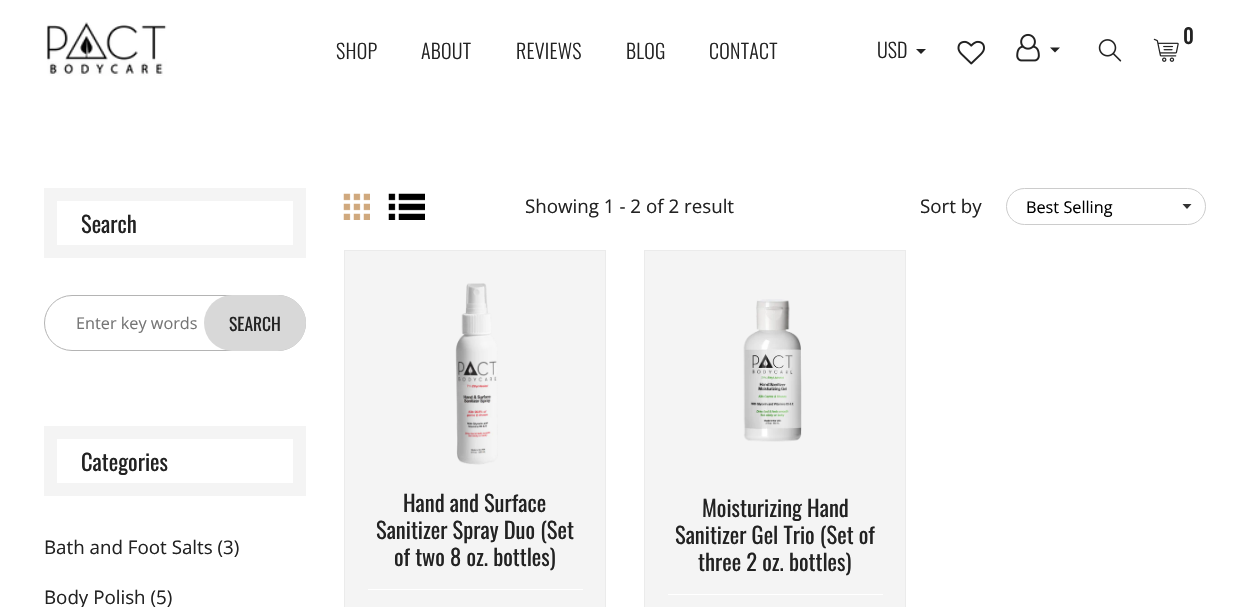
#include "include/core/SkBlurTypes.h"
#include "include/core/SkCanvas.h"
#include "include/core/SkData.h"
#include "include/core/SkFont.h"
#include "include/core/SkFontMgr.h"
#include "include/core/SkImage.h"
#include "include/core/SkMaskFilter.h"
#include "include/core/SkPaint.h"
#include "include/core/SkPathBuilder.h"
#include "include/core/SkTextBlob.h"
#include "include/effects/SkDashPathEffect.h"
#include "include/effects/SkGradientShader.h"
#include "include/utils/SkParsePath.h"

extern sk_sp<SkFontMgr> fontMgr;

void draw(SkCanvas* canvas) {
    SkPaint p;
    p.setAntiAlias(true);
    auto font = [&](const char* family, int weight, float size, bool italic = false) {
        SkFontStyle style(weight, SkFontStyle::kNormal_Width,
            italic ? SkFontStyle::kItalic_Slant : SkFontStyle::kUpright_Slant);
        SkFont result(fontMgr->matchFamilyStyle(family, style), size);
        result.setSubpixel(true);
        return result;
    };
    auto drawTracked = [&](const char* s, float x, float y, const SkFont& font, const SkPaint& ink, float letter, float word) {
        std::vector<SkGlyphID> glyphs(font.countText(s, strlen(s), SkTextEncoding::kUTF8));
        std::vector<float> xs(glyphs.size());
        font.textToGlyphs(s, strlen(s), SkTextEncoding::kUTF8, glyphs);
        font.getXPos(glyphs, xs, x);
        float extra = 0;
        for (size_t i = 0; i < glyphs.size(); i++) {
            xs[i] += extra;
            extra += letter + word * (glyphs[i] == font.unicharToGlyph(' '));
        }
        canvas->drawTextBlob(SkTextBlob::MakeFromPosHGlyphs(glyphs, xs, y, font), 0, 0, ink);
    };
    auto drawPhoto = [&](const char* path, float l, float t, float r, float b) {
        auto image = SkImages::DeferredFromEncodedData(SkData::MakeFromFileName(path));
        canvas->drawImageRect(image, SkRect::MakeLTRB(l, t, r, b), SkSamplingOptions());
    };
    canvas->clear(0xFFFFFFFF);
    drawPhoto("media/1.png", 46, 22, 167, 76);
    auto font1 = font("Oswald", 300, 20);
    p.setColor(0xFF222222);
    {
        const struct { const char* s; float x, y; } items[] = {
            {"SHOP", 336, 59},
            {"ABOUT", 421, 59},
            {"REVIEWS", 516, 59},
            {"BLOG", 626, 59},
            {"CONTACT", 709, 59},
        };
        for (auto [s, x, y] : items) {
            drawTracked(s, x, y, font1, p, 0.25f, 0);
        }
    }
    canvas->drawString("USD", 877, 58, font1, p);
    canvas->drawPath(SkPathBuilder().moveTo(916, 49).lineTo(926, 49).lineTo(921, 54).close().detach(), p);
    drawPhoto("media/2.png", 957, 40, 985, 65);
    drawPhoto("media/3.png", 1016, 33, 1040, 62);
    canvas->drawPath(SkPathBuilder().moveTo(1050, 47.5f).lineTo(1060, 47.5f).lineTo(1055, 52.5f).close().detach(), p);
    drawPhoto("media/4.png", 1098, 39, 1122, 62);
    auto font2 = font("Oswald", 700, 20);
    drawTracked("0", 1183, 44, font2, p, 0.25f, 0);
    drawPhoto("media/5.png", 1153, 38, 1179, 62);
    p.setStyle(SkPaint::kStroke_Style);
    p.setStrokeWidth(13);
    p.setColor(0xFFF4F4F4);
    canvas->drawRect(SkRect::MakeLTRB(50.5f, 194.5f, 299.5f, 251.5f), p);
    auto font3 = font("Oswald", 400, 22.5f);
    p.setStyle(SkPaint::kFill_Style);
    p.setColor(0xFF222222);
    canvas->drawString("Search", 81, 233, font3, p);
    p.setStyle(SkPaint::kStroke_Style);
    p.setStrokeWidth(1);
    p.setColor(0xFFB4B4B4);
    canvas->drawRoundRect(SkRect::MakeLTRB(44.5f, 295.5f, 305.5f, 350.5f), 27.5f, 27.5f, p);
    auto font4 = font("Open Sans", 400, 16.25f);
    p.setStyle(SkPaint::kFill_Style);
    p.setColor(0xFF757575);
    canvas->drawString("Enter key words", 76, 329, font4, p);
    p.setColor(0xFFD8D8D8);
    canvas->drawRoundRect(SkRect::MakeLTRB(204, 295, 306, 351), 28, 28, p);
    auto font5 = font("Oswald", 400, 17.5f);
    p.setColor(0xFF222222);
    canvas->drawString("SEARCH", 229, 331, font5, p);
    p.setStyle(SkPaint::kStroke_Style);
    p.setStrokeWidth(13);
    p.setColor(0xFFF4F4F4);
    canvas->drawRect(SkRect::MakeLTRB(50.5f, 432.5f, 299.5f, 489.5f), p);
    p.setStyle(SkPaint::kFill_Style);
    p.setColor(0xFF222222);
    canvas->drawString("Categories", 81, 471, font3, p);
    auto font6 = font("Open Sans", 400, 18.75f);
    canvas->drawString("Bath and Foot Salts (3)", 44, 554, font6, p);
    canvas->drawString("Body Polish (5)", 44, 604, font6, p);
    drawPhoto("media/6.png", 343, 193, 370, 220);
    drawPhoto("media/7.png", 388, 193, 425, 220);
    canvas->drawString("Showing 1 - 2 of 2 result", 525, 213, font6, p);
    canvas->drawString("Sort by", 920, 213, font6, p);
    p.setColor(0xFF333333);
    canvas->drawPath(SkPathBuilder().moveTo(1182.5f, 204).lineTo(1187, 209).lineTo(1191.5f, 204).close().detach(), p);
    p.setStyle(SkPaint::kStroke_Style);
    p.setStrokeWidth(1);
    p.setColor(0xFFCCCCCC);
    canvas->drawRoundRect(SkRect::MakeLTRB(1006.5f, 188.5f, 1205.5f, 224.5f), 18, 18, p);
    p.setStyle(SkPaint::kFill_Style);
    p.setColor(0xFF000000);
    canvas->drawString("Best Selling", 1026, 213, font4, p);
    p.setColor(0xFFF4F4F4);
    canvas->drawRect(SkRect::MakeLTRB(344.5f, 250.5f, 605.5f, 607.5f), p);
    p.setStyle(SkPaint::kStroke_Style);
    p.setColor(0xFFEBEBEB);
    canvas->drawRect(SkRect::MakeLTRB(344.5f, 250.5f, 605.5f, 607.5f), p);
    drawPhoto("media/8.png", 455, 283, 498, 465);
    p.setStyle(SkPaint::kFill_Style);
    p.setColor(0xFFFFFFFF);
    canvas->drawRect(SkRect::MakeLTRB(368, 589, 583, 590), p);
    p.setColor(0xFF222222);
    {
        const struct { const char* s; float x, y; } items[] = {
            {"Hand and Surface", 403, 512},
            {"Sanitizer Spray Duo (Set", 376, 539},
            {"of two 8 oz. bottles)", 394, 566},
        };
        for (auto [s, x, y] : items) {
            canvas->drawString(s, x, y, font3, p);
        }
    }
    p.setColor(0xFFF4F4F4);
    canvas->drawRect(SkRect::MakeLTRB(644.5f, 250.5f, 905.5f, 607.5f), p);
    p.setStyle(SkPaint::kStroke_Style);
    p.setColor(0xFFEBEBEB);
    canvas->drawRect(SkRect::MakeLTRB(644.5f, 250.5f, 905.5f, 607.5f), p);
    drawPhoto("media/9.png", 743, 299, 802, 442);
    p.setStyle(SkPaint::kFill_Style);
    p.setColor(0xFFFFFFFF);
    canvas->drawRect(SkRect::MakeLTRB(668, 594, 883, 595), p);
    p.setColor(0xFF222222);
    {
        const struct { const char* s; float x, y; } items[] = {
            {"Moisturizing Hand", 702, 517},
            {"Sanitizer Gel Trio (Set of", 675, 544},
            {"three 2 oz. bottles)", 698, 571},
        };
        for (auto [s, x, y] : items) {
            canvas->drawString(s, x, y, font3, p);
        }
    }
}
